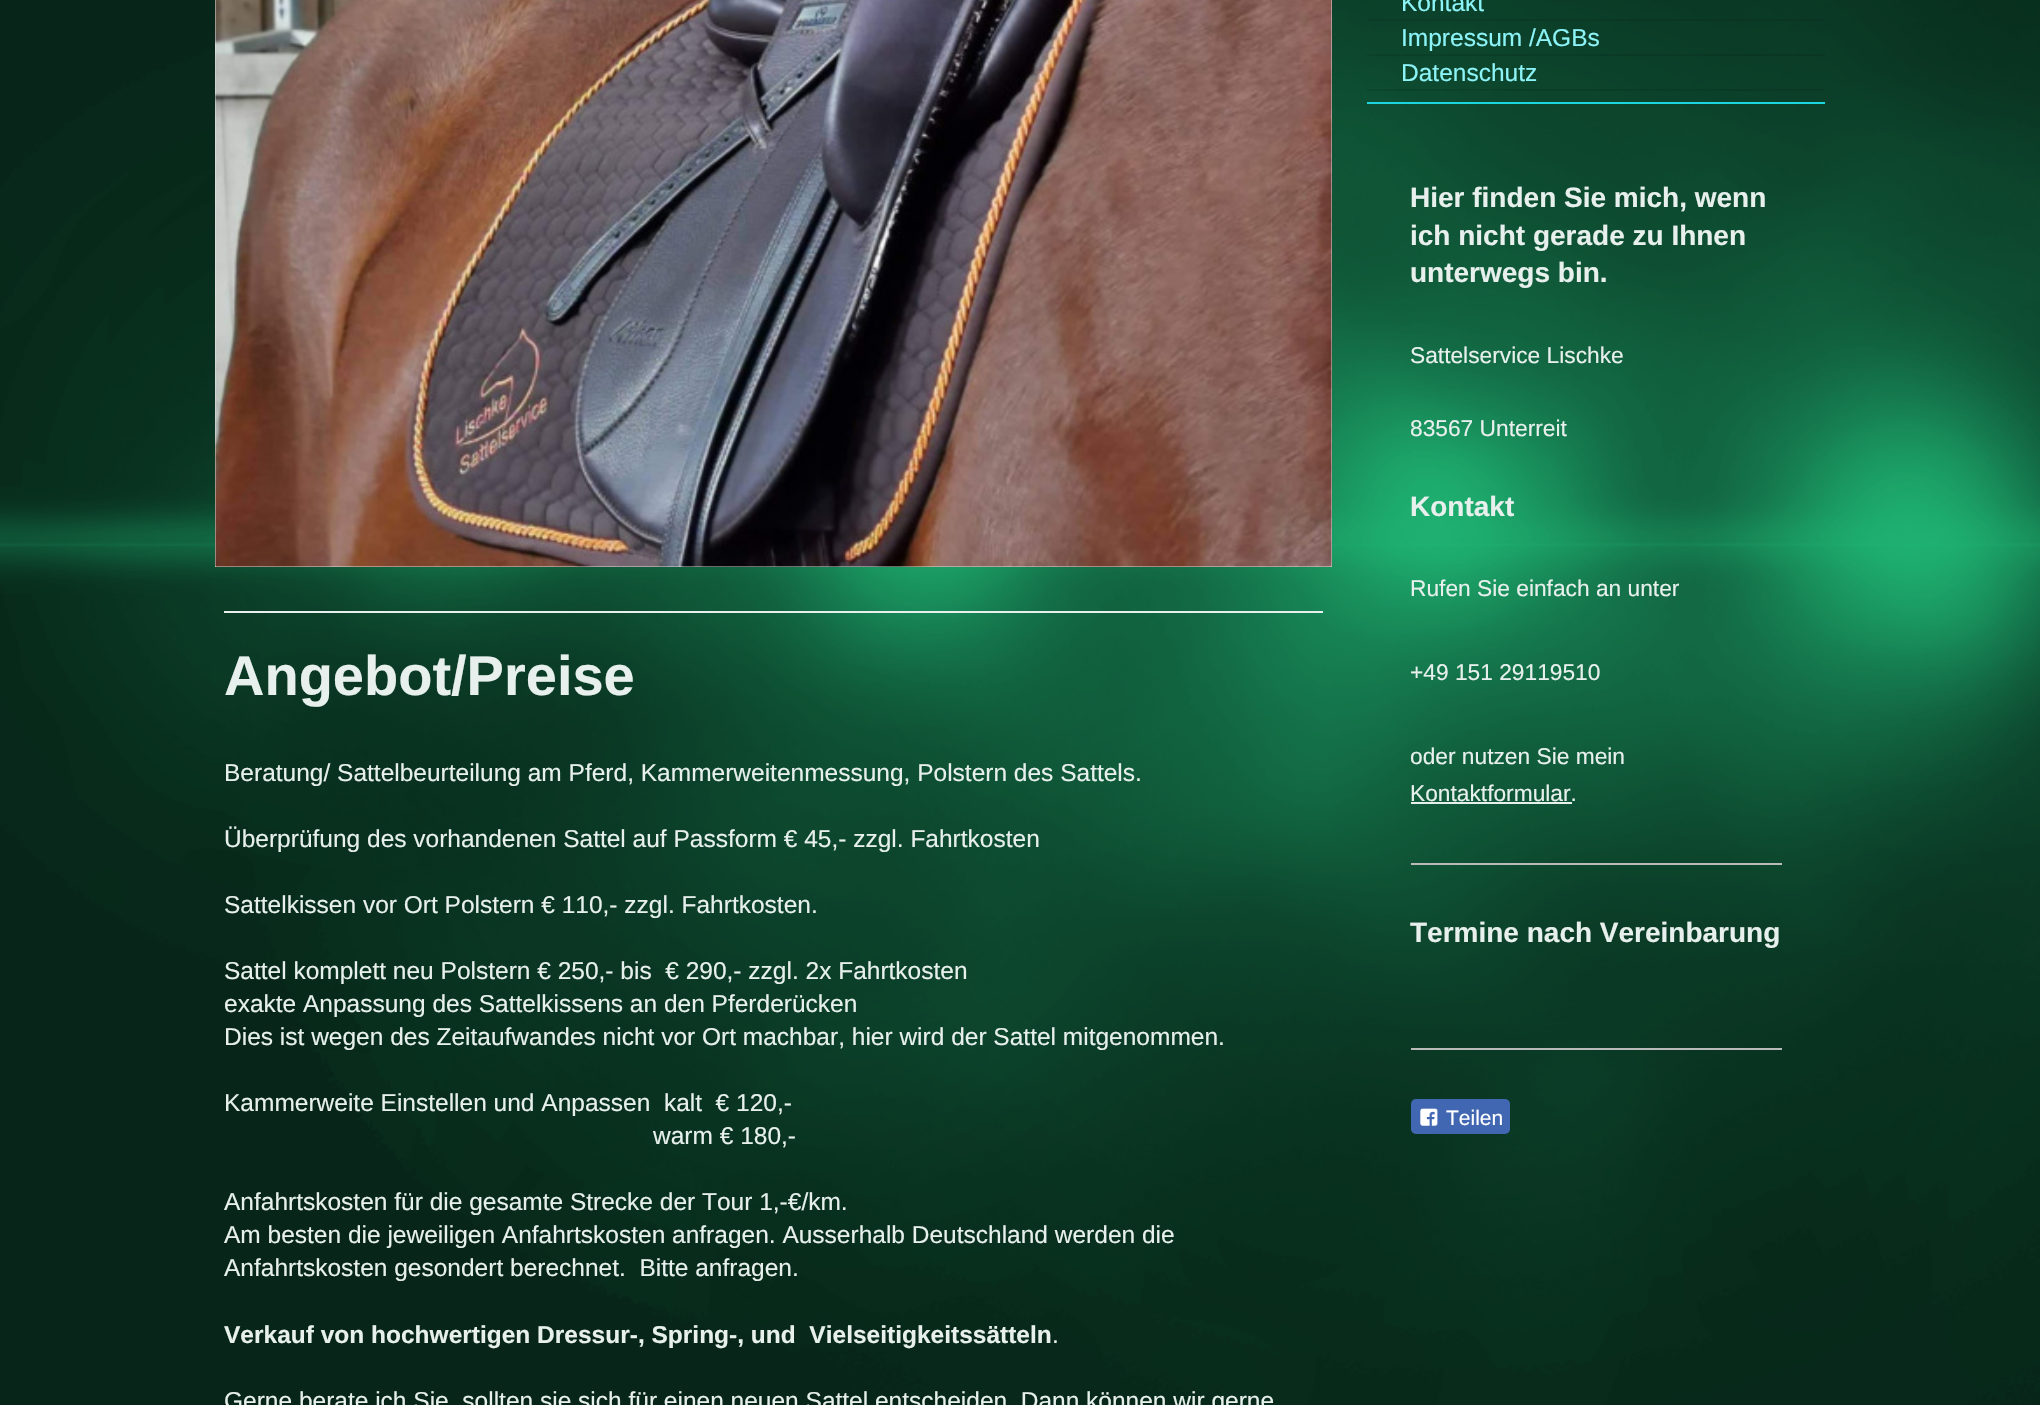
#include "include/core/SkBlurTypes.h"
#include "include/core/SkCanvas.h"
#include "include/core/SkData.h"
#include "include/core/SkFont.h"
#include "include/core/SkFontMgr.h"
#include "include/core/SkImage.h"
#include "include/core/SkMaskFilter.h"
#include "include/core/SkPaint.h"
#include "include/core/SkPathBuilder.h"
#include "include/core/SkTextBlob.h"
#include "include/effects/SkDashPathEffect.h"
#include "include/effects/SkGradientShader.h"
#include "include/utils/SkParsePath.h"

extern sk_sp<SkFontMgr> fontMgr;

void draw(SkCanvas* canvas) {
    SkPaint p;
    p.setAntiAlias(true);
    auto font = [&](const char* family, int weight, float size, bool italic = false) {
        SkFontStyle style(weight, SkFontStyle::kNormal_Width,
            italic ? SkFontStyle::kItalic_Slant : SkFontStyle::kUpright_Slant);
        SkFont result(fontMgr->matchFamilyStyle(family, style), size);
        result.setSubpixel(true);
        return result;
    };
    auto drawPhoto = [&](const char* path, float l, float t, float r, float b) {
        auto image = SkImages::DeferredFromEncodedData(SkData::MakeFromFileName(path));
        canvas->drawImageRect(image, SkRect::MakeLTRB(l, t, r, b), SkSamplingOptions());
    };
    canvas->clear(0xFF20BD79);
    drawPhoto("media/1.png", 0, 0, 2040, 1405);
    p.setColor(0xFFEEEEEE);
    canvas->drawRect(SkRect::MakeLTRB(215, 0, 1332, 567), p);
    drawPhoto("media/2.png", 215, 0, 1332, 567);
    p.setColor(0xFFE7F0EC);
    canvas->drawRect(SkRect::MakeLTRB(224, 611, 1323, 613), p);
    auto font1 = font("Liberation Sans", 700, 56);
    canvas->drawString("Angebot/Preise", 224, 695, font1, p);
    auto font2 = font("Liberation Sans", 400, 24.5f);
    {
        const struct { const char* s; float x, y; } items[] = {
            {"Beratung/ Sattelbeurteilung am Pferd, Kammerweitenmessung, Polstern des Sattels.", 224, 781},
            {"Überprüfung des vorhandenen Sattel auf Passform € 45,- zzgl. Fahrtkosten", 224, 847},
            {"Sattelkissen vor Ort Polstern € 110,- zzgl. Fahrtkosten.", 224, 913},
            {"Sattel komplett neu Polstern € 250,- bis  € 290,- zzgl. 2x Fahrtkosten", 224, 979},
            {"exakte Anpassung des Sattelkissens an den Pferderücken", 224, 1012},
            {"Dies ist wegen des Zeitaufwandes nicht vor Ort machbar, hier wird der Sattel mitgenommen.", 224, 1045},
            {"Kammerweite Einstellen und Anpassen  kalt  € 120,-", 224, 1111},
            {"warm € 180,-", 653, 1144},
            {"Anfahrtskosten für die gesamte Strecke der Tour 1,-€/km.", 224, 1210},
            {"Am besten die jeweiligen Anfahrtskosten anfragen. Ausserhalb Deutschland werden die", 224, 1243},
            {"Anfahrtskosten gesondert berechnet.  Bitte anfragen.", 224, 1276},
        };
        for (auto [s, x, y] : items) {
            canvas->drawString(s, x, y, font2, p);
        }
    }
    auto font3 = font("Liberation Sans", 700, 24.5f);
    canvas->drawString("Verkauf von hochwertigen Dressur-, Spring-, und  Vielseitigkeitssätteln", 224, 1343, font3, p);
    canvas->drawString(".", 1052, 1343, font2, p);
    canvas->drawString("Gerne berate ich Sie, sollten sie sich für einen neuen Sattel entscheiden. Dann können wir gerne", 224, 1409, font2, p);
    p.setColor(0x1A000000);
    canvas->drawRect(SkRect::MakeLTRB(1367, 19, 1825, 21), p);
    p.setColor(0xFF8CF3F7);
    canvas->drawString("Kontakt", 1401, 11, font2, p);
    p.setColor(0x1A000000);
    canvas->drawRect(SkRect::MakeLTRB(1367, 54, 1825, 56), p);
    p.setColor(0xFF8CF3F7);
    canvas->drawString("Impressum /AGBs", 1401, 46, font2, p);
    p.setColor(0x1A000000);
    canvas->drawRect(SkRect::MakeLTRB(1367, 89, 1825, 91), p);
    p.setColor(0xFF8CF3F7);
    canvas->drawString("Datenschutz", 1401, 81, font2, p);
    p.setColor(0xFF1CD6DE);
    canvas->drawRect(SkRect::MakeLTRB(1367, 102, 1825, 104), p);
    auto font4 = font("Liberation Sans", 700, 28);
    p.setColor(0xFFE7F0EC);
    {
        const struct { const char* s; float x, y; } items[] = {
            {"Hier finden Sie mich, wenn", 1410, 207},
            {"ich nicht gerade zu Ihnen", 1410, 245},
            {"unterwegs bin.", 1410, 282},
        };
        for (auto [s, x, y] : items) {
            canvas->drawString(s, x, y, font4, p);
        }
    }
    auto font5 = font("Liberation Sans", 400, 22.75f);
    canvas->drawString("Sattelservice Lischke", 1410, 363, font5, p);
    canvas->drawString("83567 Unterreit", 1410, 436, font5, p);
    canvas->drawString("Kontakt", 1410, 516, font4, p);
    {
        const struct { const char* s; float x, y; } items[] = {
            {"Rufen Sie einfach an unter", 1410, 596},
            {"+49 151 29119510", 1410, 680},
            {"oder nutzen Sie mein", 1410, 764},
            {"Kontaktformular.", 1410, 801},
        };
        for (auto [s, x, y] : items) {
            canvas->drawString(s, x, y, font5, p);
        }
    }
    canvas->drawRect(SkRect::MakeLTRB(1411, 802, 1572, 804), p);
    p.setColor(0xFFBABABA);
    canvas->drawRect(SkRect::MakeLTRB(1411, 863, 1782, 865), p);
    p.setColor(0xFFE7F0EC);
    canvas->drawString("Termine nach Vereinbarung", 1410, 942, font4, p);
    p.setColor(0xFFBABABA);
    canvas->drawRect(SkRect::MakeLTRB(1411, 1048, 1782, 1050), p);
    p.setColor(0xFF4267B2);
    canvas->drawRoundRect(SkRect::MakeLTRB(1411, 1099, 1510, 1134), 5, 5, p);
    drawPhoto("media/3.png", 1420, 1108, 1438, 1126);
    auto font6 = font("Liberation Sans", 400, 21);
    p.setColor(0xFFFFFFFF);
    canvas->drawString("Teilen", 1446, 1125, font6, p);
}
